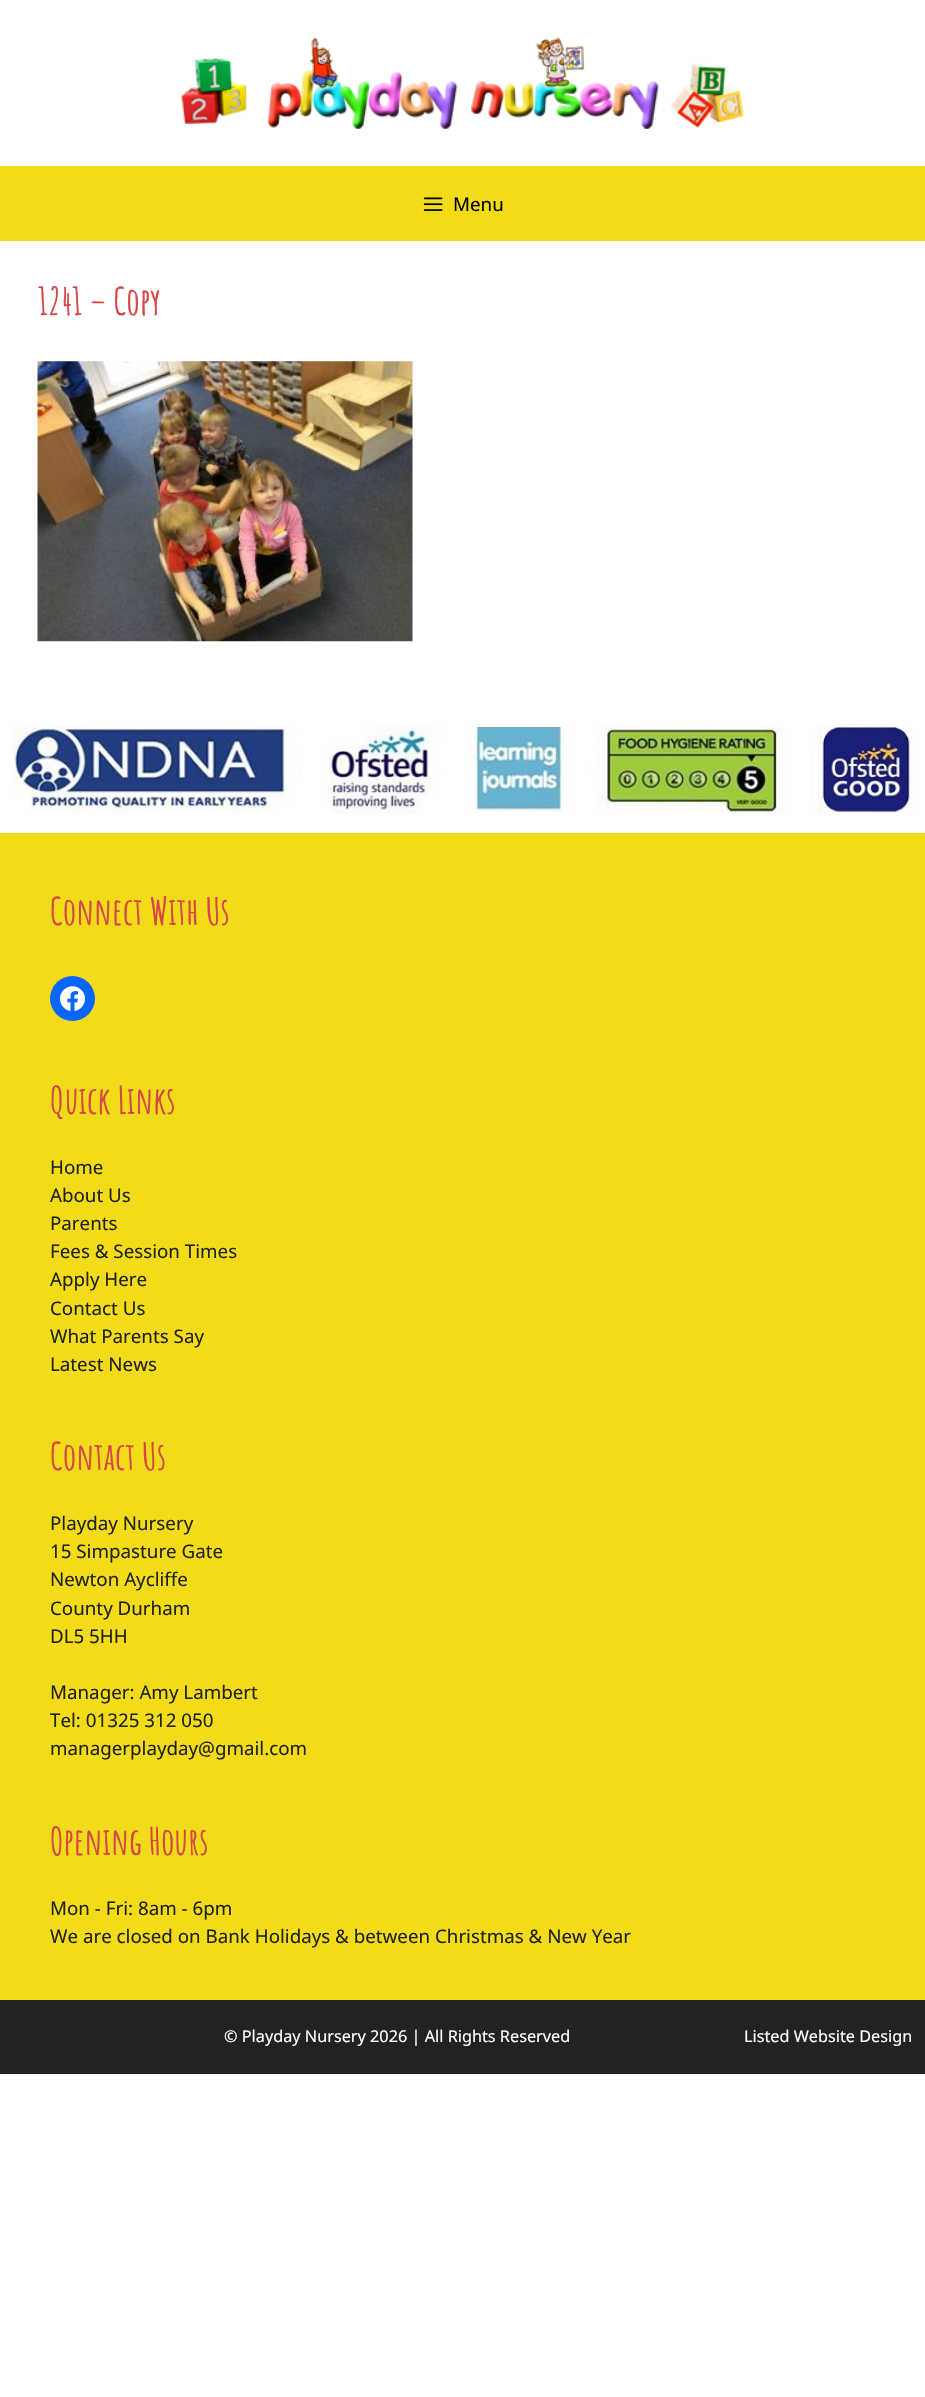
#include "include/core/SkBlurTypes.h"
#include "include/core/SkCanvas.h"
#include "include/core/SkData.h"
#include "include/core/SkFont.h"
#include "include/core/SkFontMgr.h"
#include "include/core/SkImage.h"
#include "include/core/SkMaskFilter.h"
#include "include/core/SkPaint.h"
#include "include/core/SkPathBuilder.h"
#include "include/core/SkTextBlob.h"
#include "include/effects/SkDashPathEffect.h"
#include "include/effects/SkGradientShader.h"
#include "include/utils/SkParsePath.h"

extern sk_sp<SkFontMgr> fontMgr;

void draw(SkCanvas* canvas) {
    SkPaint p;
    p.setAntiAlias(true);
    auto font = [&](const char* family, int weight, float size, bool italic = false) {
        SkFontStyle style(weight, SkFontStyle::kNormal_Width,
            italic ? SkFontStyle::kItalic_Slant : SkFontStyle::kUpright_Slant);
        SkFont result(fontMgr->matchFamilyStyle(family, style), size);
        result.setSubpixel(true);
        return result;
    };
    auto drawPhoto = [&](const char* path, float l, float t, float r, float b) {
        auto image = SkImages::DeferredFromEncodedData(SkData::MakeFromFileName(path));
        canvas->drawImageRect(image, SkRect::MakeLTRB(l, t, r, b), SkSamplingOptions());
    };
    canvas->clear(0xFFFFFFFF);
    drawPhoto("media/1.png", 181, 37, 744, 129);
    p.setColor(0xFFF2DC19);
    canvas->drawRect(SkRect::MakeLTRB(0, 166, 925, 241), p);
    drawPhoto("media/2.png", 423, 197, 443, 211);
    auto font1 = font("Noto Sans", 400, 18.75f);
    p.setColor(0xFF000000);
    canvas->drawString("Menu", 453, 211, font1, p);
    auto font2 = font("Amatic SC", 700, 37.5f);
    p.setColor(0xFFD84747);
    canvas->drawString("1241 – Copy", 38, 315, font2, p);
    drawPhoto("media/3.png", 37, 361, 413, 642);
    drawPhoto("media/4.png", 12, 724, 913, 814);
    p.setColor(0xFFF2DC19);
    canvas->drawRect(SkRect::MakeLTRB(0, 833, 925, 2000), p);
    p.setColor(0xFFD84747);
    canvas->drawString("Connect With Us", 50, 925, font2, p);
    p.setColor(0xFF0866FF);
    canvas->drawCircle(72.5f, 998.5f, 22.5f, p);
    drawPhoto("media/5.png", 60, 986, 85, 1012);
    p.setColor(0xFFD84747);
    canvas->drawString("Quick Links", 50, 1114, font2, p);
    p.setColor(0xFF222222);
    {
        const struct { const char* s; float x, y; } items[] = {
            {"Home", 50, 1174},
            {"About Us", 50, 1202},
            {"Parents", 50, 1230},
            {"Fees & Session Times", 50, 1258},
            {"Apply Here", 50, 1286},
            {"Contact Us", 50, 1315},
            {"What Parents Say", 50, 1343},
            {"Latest News", 50, 1371},
        };
        for (auto [s, x, y] : items) {
            canvas->drawString(s, x, y, font1, p);
        }
    }
    p.setColor(0xFFD84747);
    canvas->drawString("Contact Us", 50, 1470, font2, p);
    p.setColor(0xFF222222);
    {
        const struct { const char* s; float x, y; } items[] = {
            {"Playday Nursery", 50, 1530},
            {"15 Simpasture Gate", 50, 1558},
            {"Newton Aycliffe", 50, 1586},
            {"County Durham", 50, 1615},
            {"DL5 5HH", 50, 1643},
            {"Manager: Amy Lambert", 50, 1699},
            {"Tel: 01325 312 050", 50, 1727},
            {"managerplayday@gmail.com", 50, 1755},
        };
        for (auto [s, x, y] : items) {
            canvas->drawString(s, x, y, font1, p);
        }
    }
    p.setColor(0xFFD84747);
    canvas->drawString("Opening Hours", 50, 1855, font2, p);
    p.setColor(0xFF222222);
    canvas->drawString("Mon - Fri: 8am - 6pm", 50, 1915, font1, p);
    canvas->drawString("We are closed on Bank Holidays & between Christmas & New Year", 50, 1943, font1, p);
    canvas->drawRect(SkRect::MakeLTRB(0, 2000, 925, 2074), p);
    auto font3 = font("Noto Sans", 400, 16.25f);
    p.setColor(0xFFFFFFFF);
    canvas->drawString("© Playday Nursery 2026 | All Rights Reserved", 224, 2042, font3, p);
    canvas->drawString("Listed Website Design", 744, 2042, font3, p);
}
